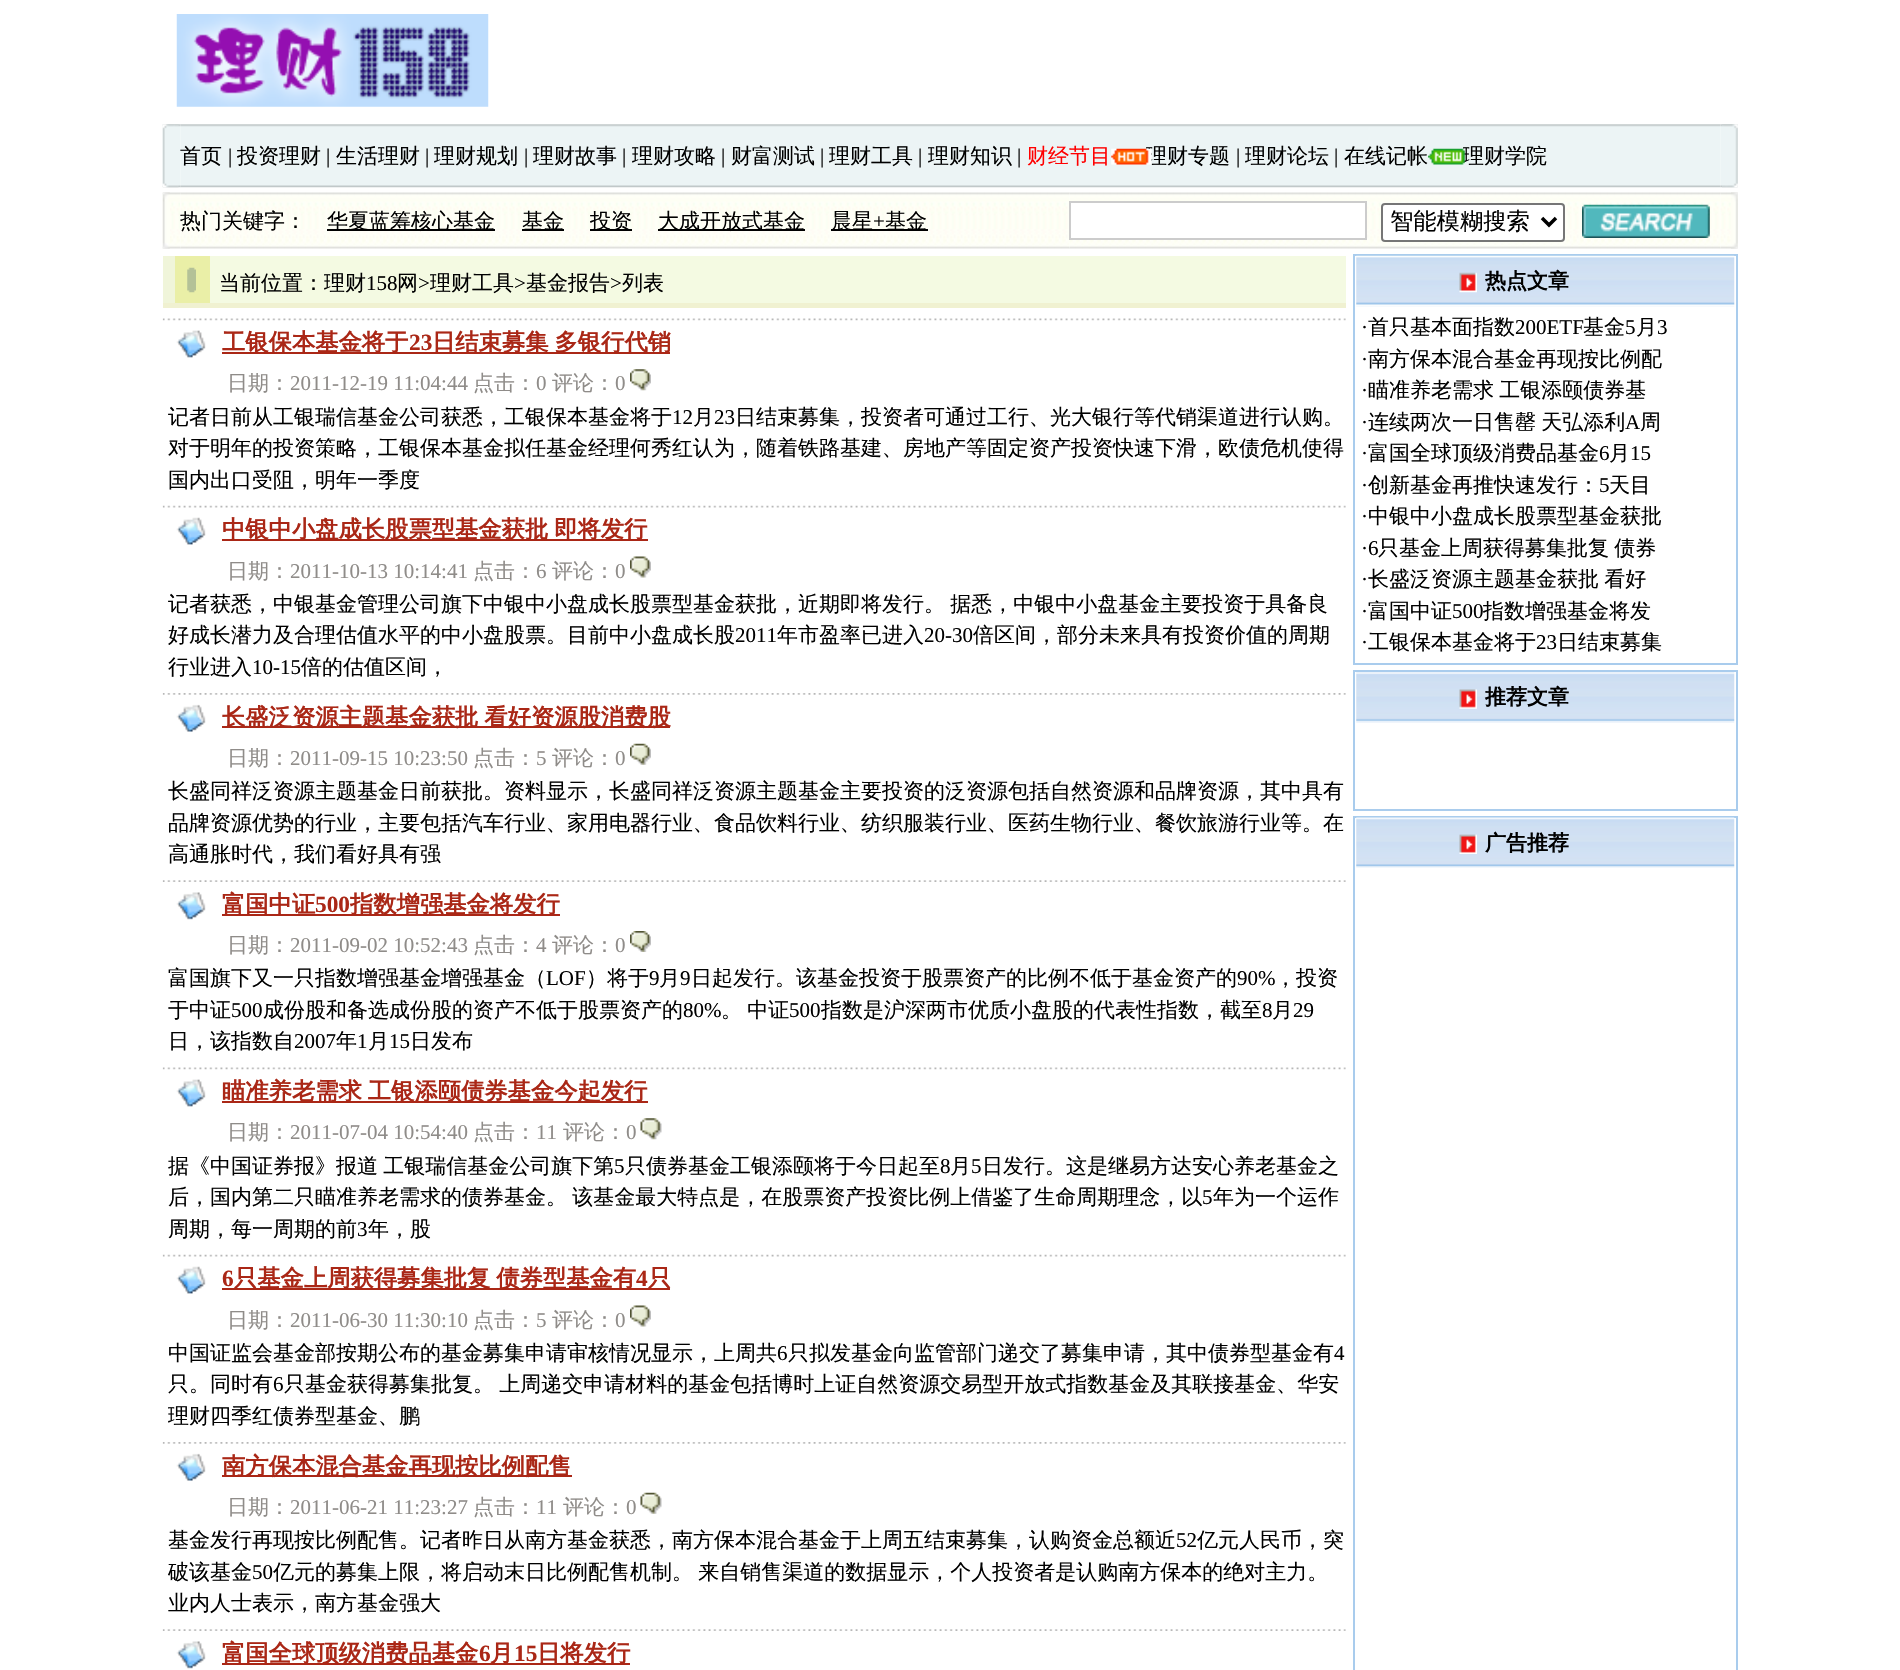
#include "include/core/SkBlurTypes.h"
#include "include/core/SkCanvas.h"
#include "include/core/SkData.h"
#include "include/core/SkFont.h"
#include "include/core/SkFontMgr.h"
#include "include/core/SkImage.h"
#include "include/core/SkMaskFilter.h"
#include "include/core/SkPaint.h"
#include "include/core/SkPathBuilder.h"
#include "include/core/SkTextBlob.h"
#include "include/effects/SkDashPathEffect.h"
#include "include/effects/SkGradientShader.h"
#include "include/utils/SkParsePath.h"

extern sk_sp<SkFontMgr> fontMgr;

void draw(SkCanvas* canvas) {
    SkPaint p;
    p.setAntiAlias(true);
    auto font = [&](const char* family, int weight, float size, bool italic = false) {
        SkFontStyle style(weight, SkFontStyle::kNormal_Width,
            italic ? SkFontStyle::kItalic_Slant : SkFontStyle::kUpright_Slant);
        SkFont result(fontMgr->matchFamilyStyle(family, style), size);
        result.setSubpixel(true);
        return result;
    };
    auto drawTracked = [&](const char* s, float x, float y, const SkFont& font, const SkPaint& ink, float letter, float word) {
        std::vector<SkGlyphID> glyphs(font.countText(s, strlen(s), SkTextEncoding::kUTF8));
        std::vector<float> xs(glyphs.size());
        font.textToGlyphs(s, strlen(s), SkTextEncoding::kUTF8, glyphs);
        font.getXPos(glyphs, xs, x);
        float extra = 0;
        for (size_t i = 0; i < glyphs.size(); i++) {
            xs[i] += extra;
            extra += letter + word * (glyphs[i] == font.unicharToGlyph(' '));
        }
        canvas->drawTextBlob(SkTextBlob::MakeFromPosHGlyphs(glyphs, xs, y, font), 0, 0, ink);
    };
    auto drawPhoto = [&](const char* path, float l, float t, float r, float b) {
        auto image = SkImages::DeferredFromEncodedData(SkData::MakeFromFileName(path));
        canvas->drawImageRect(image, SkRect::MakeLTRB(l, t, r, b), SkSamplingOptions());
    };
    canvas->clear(0xFFFFFFFF);
    drawPhoto("media/1.png", 176, 14, 489, 107);
    drawPhoto("media/2.png", 162, 124, 181, 188);
    drawPhoto("media/3.png", 162, 124, 179, 188);
    drawPhoto("media/4.png", 180, 124, 1721, 188);
    auto font1 = font("WenQuanYi Zen Hei", 500, 21);
    p.setColor(0xFF000000);
    canvas->drawString("首页", 180, 163, font1, p);
    auto font2 = font("Liberation Serif", 400, 21);
    canvas->drawString("|", 228, 163, font2, p);
    canvas->drawString("投资理财", 237, 163, font1, p);
    canvas->drawString("|", 326, 163, font2, p);
    canvas->drawString("生活理财", 336, 163, font1, p);
    canvas->drawString("|", 425, 163, font2, p);
    canvas->drawString("理财规划", 434, 163, font1, p);
    canvas->drawString("|", 524, 163, font2, p);
    canvas->drawString("理财故事", 533, 163, font1, p);
    canvas->drawString("|", 622, 163, font2, p);
    canvas->drawString("理财攻略", 632, 163, font1, p);
    canvas->drawString("|", 721, 163, font2, p);
    canvas->drawString("财富测试", 731, 163, font1, p);
    canvas->drawString("|", 820, 163, font2, p);
    canvas->drawString("理财工具", 829, 163, font1, p);
    canvas->drawString("|", 918, 163, font2, p);
    canvas->drawString("理财知识", 928, 163, font1, p);
    canvas->drawString("|", 1017, 163, font2, p);
    p.setColor(0xFFFF0000);
    canvas->drawString("财经节目", 1027, 163, font1, p);
    p.setColor(0xFF000000);
    canvas->drawString("理财专题", 1146, 163, font1, p);
    drawPhoto("media/5.png", 1111, 148, 1152, 165);
    canvas->drawString("|", 1236, 163, font2, p);
    canvas->drawString("理财论坛", 1245, 163, font1, p);
    canvas->drawString("|", 1334, 163, font2, p);
    canvas->drawString("在线记帐", 1344, 163, font1, p);
    canvas->drawString("理财学院", 1463, 163, font1, p);
    drawPhoto("media/6.png", 1428, 148, 1465, 165);
    drawPhoto("media/7.png", 1720, 124, 1738, 188);
    drawPhoto("media/8.png", 1722, 124, 1738, 188);
    drawPhoto("media/9.png", 162, 192, 181, 249);
    drawPhoto("media/10.png", 162, 192, 170, 249);
    drawPhoto("media/11.png", 180, 192, 1070, 249);
    canvas->drawString("热门关键字：", 180, 228, font1, p);
    canvas->drawRect(SkRect::MakeLTRB(327, 229, 495, 231), p);
    canvas->drawString("华夏蓝筹核心基金", 327, 228, font1, p);
    canvas->drawRect(SkRect::MakeLTRB(522, 229, 564, 231), p);
    canvas->drawString("基金", 522, 228, font1, p);
    canvas->drawRect(SkRect::MakeLTRB(590, 229, 632, 231), p);
    canvas->drawString("投资", 590, 228, font1, p);
    canvas->drawRect(SkRect::MakeLTRB(658, 229, 805, 231), p);
    canvas->drawString("大成开放式基金", 658, 228, font1, p);
    canvas->drawRect(SkRect::MakeLTRB(831, 229, 928, 231), p);
    canvas->drawString("晨星", 831, 228, font1, p);
    canvas->drawString("+", 873, 228, font2, p);
    canvas->drawString("基金", 885, 228, font1, p);
    drawPhoto("media/12.png", 1069, 192, 1721, 249);
    p.setColor(0xFFFFFFFF);
    canvas->drawRect(SkRect::MakeLTRB(1070, 202, 1366, 239), p);
    p.setStyle(SkPaint::kStroke_Style);
    p.setStrokeWidth(2);
    p.setColor(0xFFCCCCCC);
    canvas->drawRect(SkRect::MakeLTRB(1070, 202, 1366, 239), p);
    p.setStyle(SkPaint::kFill_Style);
    p.setColor(0xFFFFFFFF);
    canvas->drawRoundRect(SkRect::MakeLTRB(1382, 204, 1564, 241), 3, 3, p);
    p.setStyle(SkPaint::kStroke_Style);
    p.setColor(0xFF767676);
    canvas->drawRoundRect(SkRect::MakeLTRB(1382, 204, 1564, 241), 3, 3, p);
    p.setStrokeWidth(3.5f);
    p.setColor(0xFF000000);
    canvas->drawPath(SkPathBuilder().moveTo(1542, 218).lineTo(1549, 225).lineTo(1556, 218).detach(), p);
    auto font3 = font("WenQuanYi Zen Hei", 500, 23.3f);
    p.setStyle(SkPaint::kFill_Style);
    canvas->drawString("智能模糊搜索", 1390, 229, font3, p);
    drawPhoto("media/13.png", 1582, 204, 1710, 238);
    drawPhoto("media/14.png", 1720, 192, 1738, 249);
    drawPhoto("media/15.png", 1731, 192, 1738, 249);
    p.setColor(0xFFF0F5DA);
    canvas->drawRect(SkRect::MakeLTRB(163, 256, 175, 303), p);
    p.setColor(0xFFEAEFA7);
    canvas->drawRect(SkRect::MakeLTRB(175, 256, 210, 303), p);
    drawPhoto("media/16.png", 187, 267, 196, 293);
    p.setColor(0xFFF4FAE2);
    canvas->drawRect(SkRect::MakeLTRB(210, 256, 1346, 303), p);
    p.setColor(0xFF000000);
    canvas->drawString("当前位置：理财", 219, 290, font1, p);
    canvas->drawString("158", 366, 290, font2, p);
    canvas->drawString("网", 397, 290, font1, p);
    canvas->drawString(">", 418, 290, font2, p);
    canvas->drawString("理财工具", 430, 290, font1, p);
    canvas->drawString(">", 514, 290, font2, p);
    canvas->drawString("基金报告", 526, 290, font1, p);
    canvas->drawString(">", 610, 290, font2, p);
    canvas->drawString("列表", 622, 290, font1, p);
    p.setColor(0xFFF0F1D1);
    canvas->drawRect(SkRect::MakeLTRB(163, 303, 1346, 308), p);
    drawPhoto("media/17.png", 162, 318, 1346, 321);
    drawPhoto("media/18.png", 176, 330, 206, 358);
    p.setColor(0xFFAA2716);
    canvas->drawRect(SkRect::MakeLTRB(222, 352, 670, 354), p);
    auto font4 = font("WenQuanYi Zen Hei", 700, 23.3f);
    canvas->drawString("工银保本基金将于", 222, 350, font4, p);
    auto font5 = font("Liberation Serif", 700, 23.3f);
    canvas->drawString("23", 409, 350, font5, p);
    drawTracked("日结束募集 多银行代销", 432, 350, font4, p, 0, -1);
    p.setColor(0xFF8F8C89);
    canvas->drawString("日期：", 227, 390, font1, p);
    canvas->drawString("2011-12-19 11:04:44", 290, 390, font2, p);
    canvas->drawString("点击：", 473, 390, font1, p);
    canvas->drawString("0", 536, 390, font2, p);
    canvas->drawString("评论：", 552, 390, font1, p);
    canvas->drawString("0", 615, 390, font2, p);
    drawPhoto("media/19.png", 630, 369, 651, 391);
    p.setColor(0xFF000000);
    canvas->drawString("记者日前从工银瑞信基金公司获悉，工银保本基金将于", 168, 424, font1, p);
    canvas->drawString("12", 672, 424, font2, p);
    canvas->drawString("月", 693, 424, font1, p);
    canvas->drawString("23", 714, 424, font2, p);
    {
        const struct { const char* s; float x, y; } items[] = {
            {"日结束募集，投资者可通过工行、光大银行等代销渠道进行认购。", 735, 424},
            {"对于明年的投资策略，工银保本基金拟任基金经理何秀红认为，随着铁路基建、房地产等固定资产投资快速下滑，欧债危机使得", 168, 455},
            {"国内出口受阻，明年一季度", 168, 487},
        };
        for (auto [s, x, y] : items) {
            canvas->drawString(s, x, y, font1, p);
        }
    }
    drawPhoto("media/20.png", 162, 505, 1346, 508);
    drawPhoto("media/21.png", 176, 517, 206, 545);
    p.setColor(0xFFAA2716);
    canvas->drawRect(SkRect::MakeLTRB(222, 539, 648, 541), p);
    drawTracked("中银中小盘成长股票型基金获批 即将发行", 222, 537, font4, p, 0, -1);
    p.setColor(0xFF8F8C89);
    canvas->drawString("日期：", 227, 578, font1, p);
    canvas->drawString("2011-10-13 10:14:41", 290, 578, font2, p);
    canvas->drawString("点击：", 473, 578, font1, p);
    canvas->drawString("6", 536, 578, font2, p);
    canvas->drawString("评论：", 552, 578, font1, p);
    canvas->drawString("0", 615, 578, font2, p);
    drawPhoto("media/22.png", 630, 556, 651, 578);
    p.setColor(0xFF000000);
    drawTracked("记者获悉，中银基金管理公司旗下中银中小盘成长股票型基金获批，近期即将发行。 据悉，中银中小盘基金主要投资于具备良", 168, 611, font1, p, 0, -1);
    canvas->drawString("好成长潜力及合理估值水平的中小盘股票。目前中小盘成长股", 168, 642, font1, p);
    canvas->drawString("2011", 735, 642, font2, p);
    canvas->drawString("年市盈率已进入", 777, 642, font1, p);
    canvas->drawString("20-30", 924, 642, font2, p);
    canvas->drawString("倍区间，部分未来具有投资价值的周期", 973, 642, font1, p);
    canvas->drawString("行业进入", 168, 674, font1, p);
    canvas->drawString("10-15", 252, 674, font2, p);
    canvas->drawString("倍的估值区间，", 301, 674, font1, p);
    drawPhoto("media/23.png", 162, 693, 1346, 695);
    drawPhoto("media/24.png", 176, 704, 206, 732);
    p.setColor(0xFFAA2716);
    canvas->drawRect(SkRect::MakeLTRB(222, 726, 670, 728), p);
    drawTracked("长盛泛资源主题基金获批 看好资源股消费股", 222, 725, font4, p, 0, -1);
    p.setColor(0xFF8F8C89);
    canvas->drawString("日期：", 227, 765, font1, p);
    canvas->drawString("2011-09-15 10:23:50", 290, 765, font2, p);
    canvas->drawString("点击：", 473, 765, font1, p);
    canvas->drawString("5", 536, 765, font2, p);
    canvas->drawString("评论：", 552, 765, font1, p);
    canvas->drawString("0", 615, 765, font2, p);
    drawPhoto("media/25.png", 630, 743, 651, 765);
    p.setColor(0xFF000000);
    {
        const struct { const char* s; float x, y; } items[] = {
            {"长盛同祥泛资源主题基金日前获批。资料显示，长盛同祥泛资源主题基金主要投资的泛资源包括自然资源和品牌资源，其中具有", 168, 798},
            {"品牌资源优势的行业，主要包括汽车行业、家用电器行业、食品饮料行业、纺织服装行业、医药生物行业、餐饮旅游行业等。在", 168, 830},
            {"高通胀时代，我们看好具有强", 168, 861},
        };
        for (auto [s, x, y] : items) {
            canvas->drawString(s, x, y, font1, p);
        }
    }
    drawPhoto("media/26.png", 162, 880, 1346, 882);
    drawPhoto("media/27.png", 176, 892, 206, 920);
    p.setColor(0xFFAA2716);
    canvas->drawRect(SkRect::MakeLTRB(222, 914, 560, 916), p);
    canvas->drawString("富国中证", 222, 912, font4, p);
    canvas->drawString("500", 315, 912, font5, p);
    canvas->drawString("指数增强基金将发行", 350, 912, font4, p);
    p.setColor(0xFF8F8C89);
    canvas->drawString("日期：", 227, 952, font1, p);
    canvas->drawString("2011-09-02 10:52:43", 290, 952, font2, p);
    canvas->drawString("点击：", 473, 952, font1, p);
    canvas->drawString("4", 536, 952, font2, p);
    canvas->drawString("评论：", 552, 952, font1, p);
    canvas->drawString("0", 615, 952, font2, p);
    drawPhoto("media/28.png", 630, 931, 651, 952);
    p.setColor(0xFF000000);
    canvas->drawString("富国旗下又一只指数增强基金增强基金（", 168, 985, font1, p);
    canvas->drawString("LOF", 546, 985, font2, p);
    canvas->drawString("）将于", 586, 985, font1, p);
    canvas->drawString("9", 649, 985, font2, p);
    canvas->drawString("月", 659, 985, font1, p);
    canvas->drawString("9", 680, 985, font2, p);
    canvas->drawString("日起发行。该基金投资于股票资产的比例不低于基金资产的", 691, 985, font1, p);
    canvas->drawString("90%", 1237, 985, font2, p);
    canvas->drawString("，投资", 1275, 985, font1, p);
    canvas->drawString("于中证", 168, 1017, font1, p);
    canvas->drawString("500", 231, 1017, font2, p);
    canvas->drawString("成份股和备选成份股的资产不低于股票资产的", 263, 1017, font1, p);
    canvas->drawString("80%", 683, 1017, font2, p);
    drawTracked("。 中证", 721, 1017, font1, p, 0, -1);
    canvas->drawString("500", 789, 1017, font2, p);
    canvas->drawString("指数是沪深两市优质小盘股的代表性指数，截至", 821, 1017, font1, p);
    canvas->drawString("8", 1262, 1017, font2, p);
    canvas->drawString("月", 1272, 1017, font1, p);
    canvas->drawString("29", 1293, 1017, font2, p);
    canvas->drawString("日，该指数自", 168, 1048, font1, p);
    canvas->drawString("2007", 294, 1048, font2, p);
    canvas->drawString("年", 336, 1048, font1, p);
    canvas->drawString("1", 357, 1048, font2, p);
    canvas->drawString("月", 368, 1048, font1, p);
    canvas->drawString("15", 389, 1048, font2, p);
    canvas->drawString("日发布", 410, 1048, font1, p);
    drawPhoto("media/17.png", 162, 1067, 1346, 1070);
    drawPhoto("media/18.png", 176, 1079, 206, 1107);
    p.setColor(0xFFAA2716);
    canvas->drawRect(SkRect::MakeLTRB(222, 1101, 648, 1103), p);
    drawTracked("瞄准养老需求 工银添颐债券基金今起发行", 222, 1099, font4, p, 0, -1);
    p.setColor(0xFF8F8C89);
    canvas->drawString("日期：", 227, 1139, font1, p);
    canvas->drawString("2011-07-04 10:54:40", 290, 1139, font2, p);
    canvas->drawString("点击：", 473, 1139, font1, p);
    canvas->drawString("11", 536, 1139, font2, p);
    canvas->drawString("评论：", 563, 1139, font1, p);
    canvas->drawString("0", 626, 1139, font2, p);
    drawPhoto("media/29.png", 640, 1118, 662, 1140);
    p.setColor(0xFF000000);
    drawTracked("据《中国证券报》报道 工银瑞信基金公司旗下第", 168, 1173, font1, p, 0, -1);
    canvas->drawString("5", 614, 1173, font2, p);
    canvas->drawString("只债券基金工银添颐将于今日起至", 625, 1173, font1, p);
    canvas->drawString("8", 940, 1173, font2, p);
    canvas->drawString("月", 950, 1173, font1, p);
    canvas->drawString("5", 971, 1173, font2, p);
    canvas->drawString("日发行。这是继易方达安心养老基金之", 982, 1173, font1, p);
    drawTracked("后，国内第二只瞄准养老需求的债券基金。 该基金最大特点是，在股票资产投资比例上借鉴了生命周期理念，以", 168, 1204, font1, p, 0, -1);
    canvas->drawString("5", 1202, 1204, font2, p);
    canvas->drawString("年为一个运作", 1213, 1204, font1, p);
    canvas->drawString("周期，每一周期的前", 168, 1236, font1, p);
    canvas->drawString("3", 357, 1236, font2, p);
    canvas->drawString("年，股", 368, 1236, font1, p);
    drawPhoto("media/20.png", 162, 1254, 1346, 1257);
    drawPhoto("media/21.png", 176, 1266, 206, 1294);
    p.setColor(0xFFAA2716);
    canvas->drawString("6", 222, 1286, font5, p);
    canvas->drawRect(SkRect::MakeLTRB(222, 1288, 670, 1290), p);
    drawTracked("只基金上周获得募集批复 债券型基金有", 234, 1286, font4, p, 0, -1);
    canvas->drawString("4", 636, 1286, font5, p);
    canvas->drawString("只", 648, 1286, font4, p);
    p.setColor(0xFF8F8C89);
    canvas->drawString("日期：", 227, 1327, font1, p);
    canvas->drawString("2011-06-30 11:30:10", 290, 1327, font2, p);
    canvas->drawString("点击：", 473, 1327, font1, p);
    canvas->drawString("5", 536, 1327, font2, p);
    canvas->drawString("评论：", 552, 1327, font1, p);
    canvas->drawString("0", 615, 1327, font2, p);
    drawPhoto("media/22.png", 630, 1305, 651, 1327);
    p.setColor(0xFF000000);
    canvas->drawString("中国证监会基金部按期公布的基金募集申请审核情况显示，上周共", 168, 1360, font1, p);
    canvas->drawString("6", 777, 1360, font2, p);
    canvas->drawString("只拟发基金向监管部门递交了募集申请，其中债券型基金有", 788, 1360, font1, p);
    canvas->drawString("4", 1334, 1360, font2, p);
    canvas->drawString("只。同时有", 168, 1391, font1, p);
    canvas->drawString("6", 273, 1391, font2, p);
    drawTracked("只基金获得募集批复。 上周递交申请材料的基金包括博时上证自然资源交易型开放式指数基金及其联接基金、华安", 284, 1391, font1, p, 0, -1);
    canvas->drawString("理财四季红债券型基金、鹏", 168, 1423, font1, p);
    drawPhoto("media/23.png", 162, 1442, 1346, 1444);
    drawPhoto("media/24.png", 176, 1453, 206, 1481);
    p.setColor(0xFFAA2716);
    canvas->drawRect(SkRect::MakeLTRB(222, 1475, 572, 1477), p);
    canvas->drawString("南方保本混合基金再现按比例配售", 222, 1474, font4, p);
    p.setColor(0xFF8F8C89);
    canvas->drawString("日期：", 227, 1514, font1, p);
    canvas->drawString("2011-06-21 11:23:27", 290, 1514, font2, p);
    canvas->drawString("点击：", 473, 1514, font1, p);
    canvas->drawString("11", 536, 1514, font2, p);
    canvas->drawString("评论：", 563, 1514, font1, p);
    canvas->drawString("0", 626, 1514, font2, p);
    drawPhoto("media/30.png", 640, 1492, 662, 1514);
    p.setColor(0xFF000000);
    canvas->drawString("基金发行再现按比例配售。记者昨日从南方基金获悉，南方保本混合基金于上周五结束募集，认购资金总额近", 168, 1547, font1, p);
    canvas->drawString("52", 1176, 1547, font2, p);
    canvas->drawString("亿元人民币，突", 1197, 1547, font1, p);
    canvas->drawString("破该基金", 168, 1579, font1, p);
    canvas->drawString("50", 252, 1579, font2, p);
    drawTracked("亿元的募集上限，将启动末日比例配售机制。 来自销售渠道的数据显示，个人投资者是认购南方保本的绝对主力。", 273, 1579, font1, p, 0, -1);
    canvas->drawString("业内人士表示，南方基金强大", 168, 1610, font1, p);
    drawPhoto("media/26.png", 162, 1629, 1346, 1631);
    drawPhoto("media/27.png", 176, 1641, 206, 1669);
    p.setColor(0xFFAA2716);
    canvas->drawRect(SkRect::MakeLTRB(222, 1663, 630, 1665), p);
    canvas->drawString("富国全球顶级消费品基金", 222, 1661, font4, p);
    canvas->drawString("6", 479, 1661, font5, p);
    canvas->drawString("月", 490, 1661, font4, p);
    canvas->drawString("15", 514, 1661, font5, p);
    canvas->drawString("日将发行", 537, 1661, font4, p);
    {
        const struct { float l, t, r, b; SkColor color; } items[] = {
            {1353, 254, 1738, 256, 0xFFA9CCED},
            {1736, 254, 1738, 665, 0xFFA9CCED},
            {1353, 254, 1355, 306, 0xFFA9CCED},
        };
        for (auto [l, t, r, b, color] : items) {
            p.setColor(color);
            canvas->drawRect(SkRect::MakeLTRB(l, t, r, b), p);
        }
    }
    drawPhoto("media/31.png", 1356, 255, 1735, 307);
    drawPhoto("media/32.png", 1459, 272, 1477, 293);
    auto font6 = font("WenQuanYi Zen Hei", 700, 21);
    p.setColor(0xFF000000);
    canvas->drawString("热点文章", 1485, 288, font6, p);
    p.setColor(0xFFA9CCED);
    canvas->drawRect(SkRect::MakeLTRB(1353, 663, 1738, 665), p);
    canvas->drawRect(SkRect::MakeLTRB(1353, 306, 1355, 665), p);
    p.setColor(0xFF000000);
    canvas->drawString("·", 1361, 334, font2, p);
    canvas->drawString("首只基本面指数", 1368, 334, font1, p);
    canvas->drawString("200ETF", 1515, 334, font2, p);
    canvas->drawString("基金", 1583, 334, font1, p);
    canvas->drawString("5", 1625, 334, font2, p);
    canvas->drawString("月", 1636, 334, font1, p);
    canvas->drawString("3", 1657, 334, font2, p);
    canvas->drawString("·", 1361, 366, font2, p);
    canvas->drawString("南方保本混合基金再现按比例配", 1368, 366, font1, p);
    canvas->drawString("·", 1361, 397, font2, p);
    drawTracked("瞄准养老需求 工银添颐债券基", 1368, 397, font1, p, 0, -1);
    canvas->drawString("·", 1361, 429, font2, p);
    drawTracked("连续两次一日售罄 天弘添利", 1368, 429, font1, p, 0, -1);
    canvas->drawString("A", 1625, 429, font2, p);
    canvas->drawString("周", 1640, 429, font1, p);
    canvas->drawString("·", 1361, 460, font2, p);
    canvas->drawString("富国全球顶级消费品基金", 1368, 460, font1, p);
    canvas->drawString("6", 1599, 460, font2, p);
    canvas->drawString("月", 1609, 460, font1, p);
    canvas->drawString("15", 1630, 460, font2, p);
    canvas->drawString("·", 1361, 492, font2, p);
    canvas->drawString("创新基金再推快速发行：", 1368, 492, font1, p);
    canvas->drawString("5", 1599, 492, font2, p);
    canvas->drawString("天目", 1609, 492, font1, p);
    canvas->drawString("·", 1361, 523, font2, p);
    canvas->drawString("中银中小盘成长股票型基金获批", 1368, 523, font1, p);
    canvas->drawString("·6", 1361, 555, font2, p);
    drawTracked("只基金上周获得募集批复 债券", 1378, 555, font1, p, 0, -1);
    canvas->drawString("·", 1361, 586, font2, p);
    drawTracked("长盛泛资源主题基金获批 看好", 1368, 586, font1, p, 0, -1);
    canvas->drawString("·", 1361, 618, font2, p);
    canvas->drawString("富国中证", 1368, 618, font1, p);
    canvas->drawString("500", 1452, 618, font2, p);
    canvas->drawString("指数增强基金将发", 1483, 618, font1, p);
    canvas->drawString("·", 1361, 649, font2, p);
    canvas->drawString("工银保本基金将于", 1368, 649, font1, p);
    canvas->drawString("23", 1536, 649, font2, p);
    canvas->drawString("日结束募集", 1557, 649, font1, p);
    {
        const struct { float l, t, r, b; SkColor color; } items[] = {
            {1353, 670, 1738, 672, 0xFFA9CCED},
            {1736, 670, 1738, 810, 0xFFA9CCED},
            {1353, 670, 1355, 723, 0xFFA9CCED},
        };
        for (auto [l, t, r, b, color] : items) {
            p.setColor(color);
            canvas->drawRect(SkRect::MakeLTRB(l, t, r, b), p);
        }
    }
    drawPhoto("media/33.png", 1356, 672, 1735, 723);
    drawPhoto("media/34.png", 1459, 689, 1477, 709);
    p.setColor(0xFF000000);
    canvas->drawString("推荐文章", 1485, 704, font6, p);
    {
        const struct { float l, t, r, b; SkColor color; } items[] = {
            {1353, 809, 1738, 811, 0xFFA9CCED},
            {1353, 723, 1355, 810, 0xFFA9CCED},
            {1353, 816, 1738, 818, 0xFFA9CCED},
            {1736, 816, 1738, 1670, 0xFFA9CCED},
            {1353, 816, 1355, 1670, 0xFFA9CCED},
        };
        for (auto [l, t, r, b, color] : items) {
            p.setColor(color);
            canvas->drawRect(SkRect::MakeLTRB(l, t, r, b), p);
        }
    }
    drawPhoto("media/35.png", 1356, 817, 1735, 868);
    drawPhoto("media/36.png", 1459, 834, 1477, 854);
    p.setColor(0xFF000000);
    canvas->drawString("广告推荐", 1485, 850, font6, p);
}
